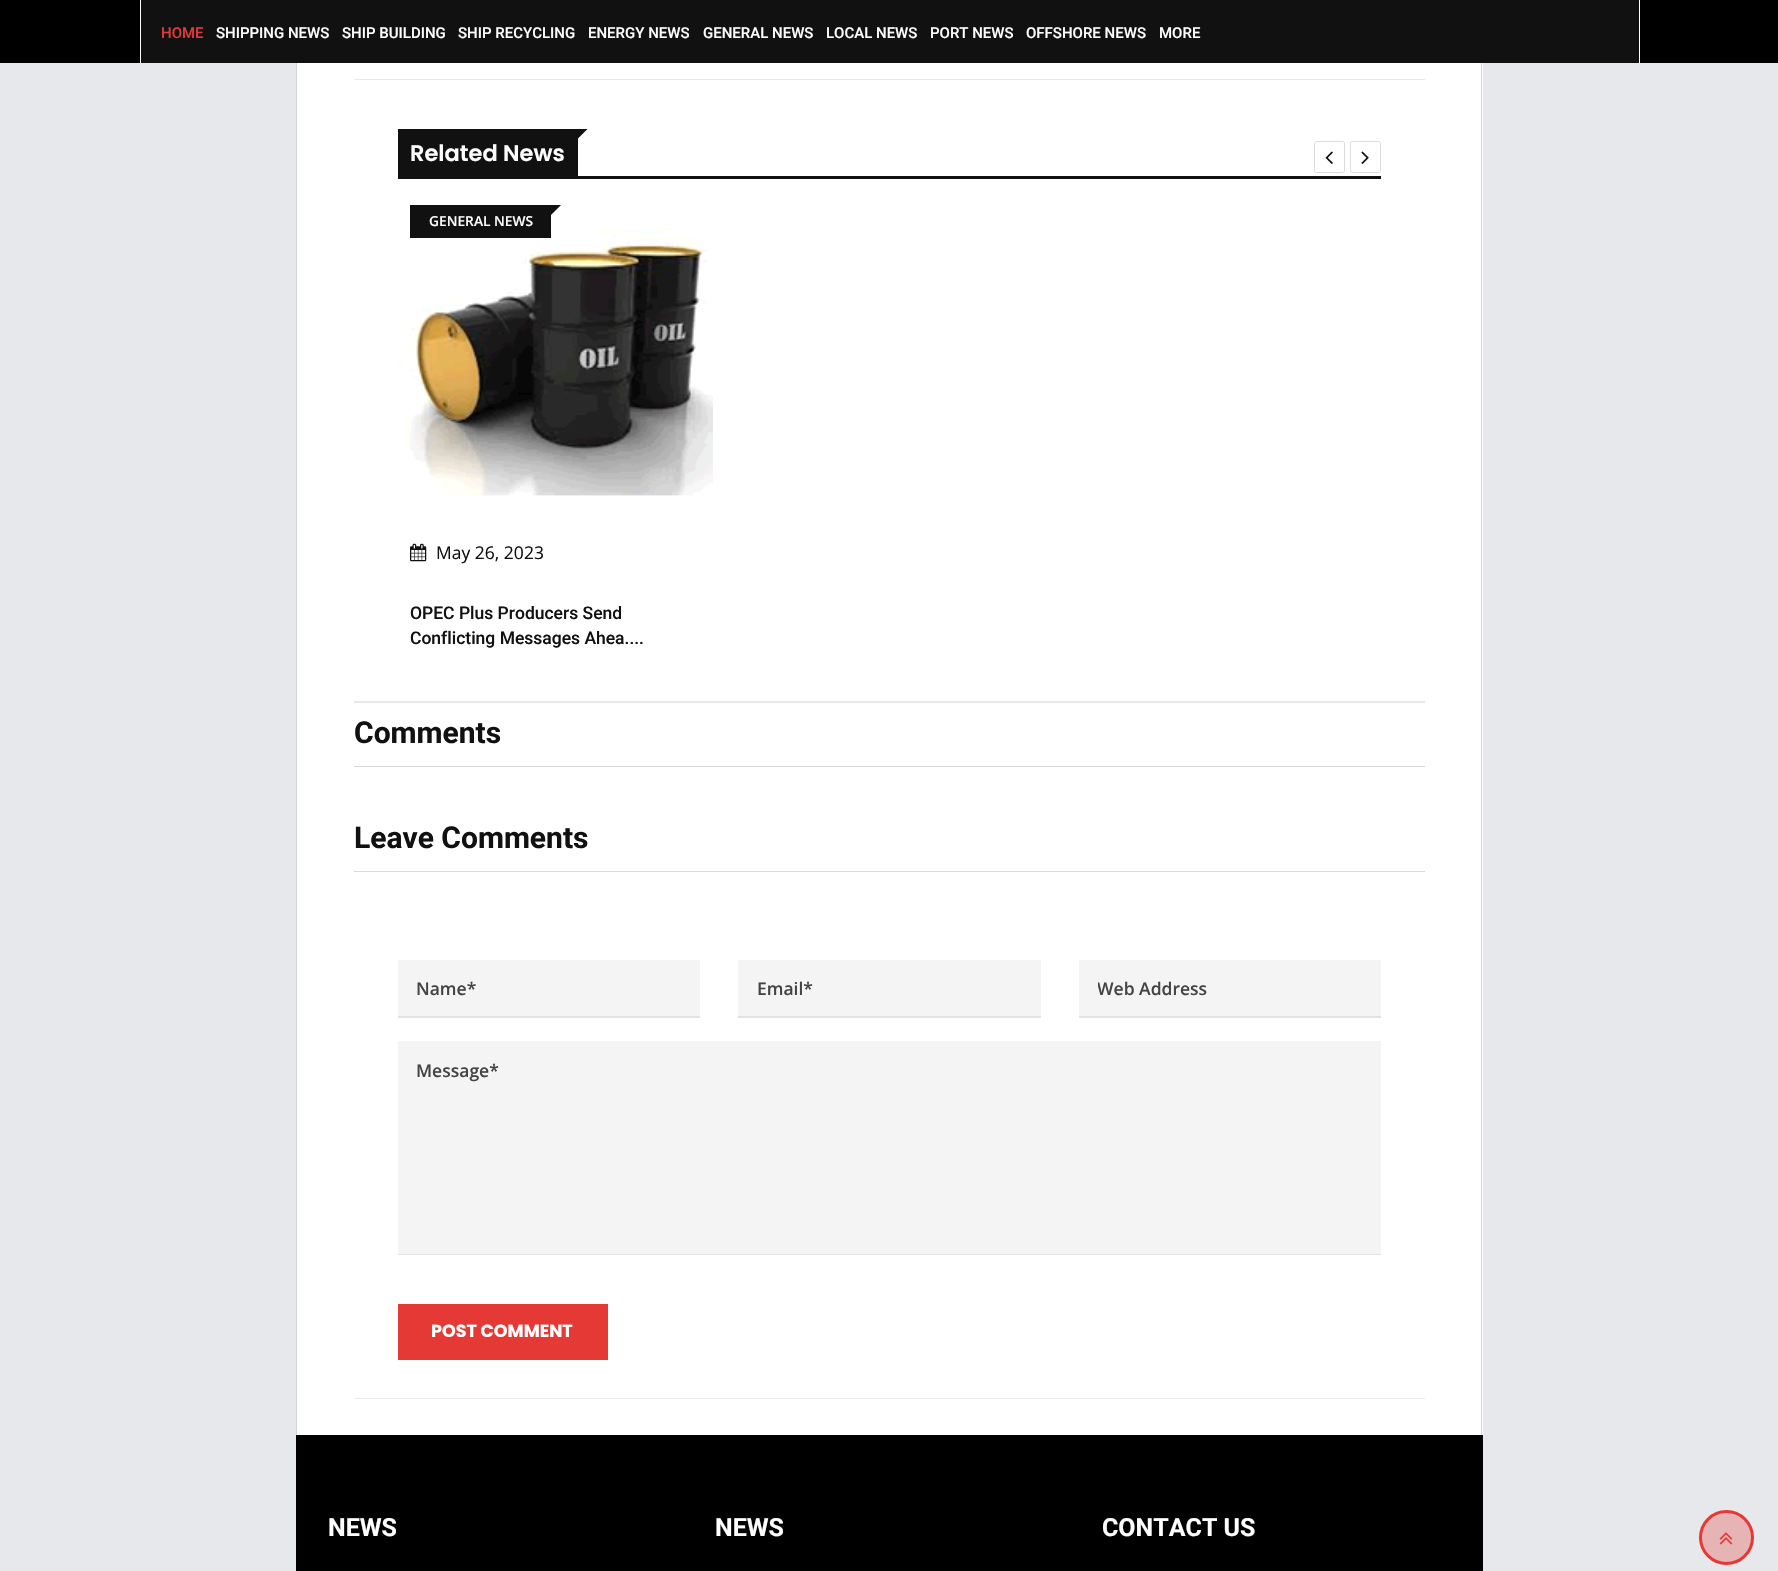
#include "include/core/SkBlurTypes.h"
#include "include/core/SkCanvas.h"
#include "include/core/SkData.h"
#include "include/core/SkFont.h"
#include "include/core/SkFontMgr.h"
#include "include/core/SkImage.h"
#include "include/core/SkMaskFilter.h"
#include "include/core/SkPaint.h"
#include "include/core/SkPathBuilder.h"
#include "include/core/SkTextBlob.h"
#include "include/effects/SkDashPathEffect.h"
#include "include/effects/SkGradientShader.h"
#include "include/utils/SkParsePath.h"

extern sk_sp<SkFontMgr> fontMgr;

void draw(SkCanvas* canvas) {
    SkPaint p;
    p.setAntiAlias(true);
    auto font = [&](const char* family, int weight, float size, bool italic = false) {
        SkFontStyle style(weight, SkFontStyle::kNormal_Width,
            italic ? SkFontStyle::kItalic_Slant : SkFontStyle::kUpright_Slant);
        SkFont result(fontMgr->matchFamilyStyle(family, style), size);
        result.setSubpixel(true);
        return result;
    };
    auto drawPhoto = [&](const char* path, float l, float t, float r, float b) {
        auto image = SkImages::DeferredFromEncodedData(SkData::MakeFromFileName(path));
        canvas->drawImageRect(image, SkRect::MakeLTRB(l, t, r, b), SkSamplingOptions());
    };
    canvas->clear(0xFFE6E8EB);
    {
        const struct { float l, t, r, b; SkColor color; } items[] = {
            {0, 0, 1778, 63, 0xFF000000},
            {140, 0, 1640, 63, 0xFFFFFFFF},
            {141, 0, 1639, 63, 0xFF111111},
        };
        for (auto [l, t, r, b, color] : items) {
            p.setColor(color);
            canvas->drawRect(SkRect::MakeLTRB(l, t, r, b), p);
        }
    }
    auto font1 = font("Roboto", 500, 15);
    p.setColor(0xFFE53935);
    canvas->drawString("HOME", 161, 38, font1, p);
    p.setColor(0xFFFFFFFF);
    {
        const struct { const char* s; float x, y; } items[] = {
            {"SHIPPING NEWS", 216, 38},
            {"SHIP BUILDING", 342, 38},
            {"SHIP RECYCLING", 458, 38},
            {"ENERGY NEWS", 588, 38},
            {"GENERAL NEWS", 703, 38},
            {"LOCAL NEWS", 826, 38},
            {"PORT NEWS", 930, 38},
            {"OFFSHORE NEWS", 1026, 38},
            {"MORE", 1159, 38},
        };
        for (auto [s, x, y] : items) {
            canvas->drawString(s, x, y, font1, p);
        }
    }
    {
        const struct { float l, t, r, b; SkColor color; } items[] = {
            {297, 63, 1483, 1435, 0xFFFFFFFF},
            {1481, 63, 1482, 1435, 0xFFD5D5D5},
            {296, 63, 297, 1435, 0xFFD5D5D5},
            {354, 79, 1425, 80, 0xFFE9E9E9},
            {354, 701, 1425, 703, 0xFFE9E9E9},
            {398, 129, 578, 176, 0xFF111111},
        };
        for (auto [l, t, r, b, color] : items) {
            p.setColor(color);
            canvas->drawRect(SkRect::MakeLTRB(l, t, r, b), p);
        }
    }
    canvas->drawPath(SkPathBuilder().moveTo(577.5f, 129).lineTo(587.5f, 129).lineTo(577.5f, 139).close().detach(), p);
    auto font2 = font("Poppins", 600, 22.5f);
    p.setColor(0xFFFFFFFF);
    canvas->drawString("Related News", 410, 161, font2, p);
    p.setColor(0xFF111111);
    canvas->drawRect(SkRect::MakeLTRB(398, 176, 1381, 179), p);
    p.setStyle(SkPaint::kStroke_Style);
    p.setStrokeWidth(1);
    p.setColor(0xFFDCDCDC);
    canvas->drawRoundRect(SkRect::MakeLTRB(1314.5f, 141.5f, 1344.5f, 172.5f), 2, 2, p);
    drawPhoto("media/1.png", 1325, 151, 1333, 164);
    canvas->drawRoundRect(SkRect::MakeLTRB(1350.5f, 141.5f, 1380.5f, 172.5f), 2, 2, p);
    drawPhoto("media/2.png", 1361, 151, 1369, 164);
    drawPhoto("media/3.png", 398, 228, 713, 496);
    p.setStyle(SkPaint::kFill_Style);
    p.setColor(0xFF111111);
    canvas->drawRect(SkRect::MakeLTRB(410, 205, 551, 238), p);
    canvas->drawPath(SkPathBuilder().moveTo(551, 205).lineTo(561, 205).lineTo(551, 215).close().detach(), p);
    auto font3 = font("Open Sans", 600, 13.75f);
    p.setColor(0xFFFFFFFF);
    canvas->drawString("GENERAL NEWS", 429, 226, font3, p);
    drawPhoto("media/4.png", 410, 543, 427, 562);
    auto font4 = font("Open Sans", 400, 17.5f);
    p.setColor(0xFF111111);
    canvas->drawString("May 26, 2023", 436, 559, font4, p);
    auto font5 = font("Roboto", 500, 17.5f);
    canvas->drawString("OPEC Plus Producers Send", 410, 619, font5, p);
    canvas->drawString("Conflicting Messages Ahea....", 410, 644, font5, p);
    auto font6 = font("Roboto", 700, 30);
    canvas->drawString("Comments", 354, 743, font6, p);
    p.setColor(0xFFDADADA);
    canvas->drawRect(SkRect::MakeLTRB(354, 766, 1425, 767), p);
    p.setColor(0xFF111111);
    canvas->drawString("Leave Comments", 354, 848, font6, p);
    {
        const struct { float l, t, r, b; SkColor color; } items[] = {
            {354, 871, 1425, 872, 0xFFDADADA},
            {354, 1398, 1425, 1399, 0xFFE9E9E9},
            {398, 1016, 700, 1018, 0xFFE2E2E2},
            {398, 960, 700, 1016, 0xFFF4F4F4},
        };
        for (auto [l, t, r, b, color] : items) {
            p.setColor(color);
            canvas->drawRect(SkRect::MakeLTRB(l, t, r, b), p);
        }
    }
    auto font7 = font("Open Sans", 600, 17.5f);
    p.setColor(0xFF444444);
    canvas->drawString("Name*", 416, 995, font7, p);
    p.setColor(0xFFE2E2E2);
    canvas->drawRect(SkRect::MakeLTRB(738, 1016, 1041, 1018), p);
    p.setColor(0xFFF4F4F4);
    canvas->drawRect(SkRect::MakeLTRB(738, 960, 1041, 1016), p);
    p.setColor(0xFF444444);
    canvas->drawString("Email*", 757, 995, font7, p);
    p.setColor(0xFFE2E2E2);
    canvas->drawRect(SkRect::MakeLTRB(1079, 1016, 1381, 1018), p);
    p.setColor(0xFFF4F4F4);
    canvas->drawRect(SkRect::MakeLTRB(1079, 960, 1381, 1016), p);
    canvas->save();
    canvas->clipRect(SkRect::MakeLTRB(1098, 976, 1363, 1000));
    p.setColor(0xFF444444);
    canvas->drawString("Web Address", 1097, 995, font7, p);
    canvas->restore();
    p.setColor(0xFFE2E2E2);
    canvas->drawRect(SkRect::MakeLTRB(398, 1254, 1381, 1255), p);
    p.setColor(0xFFF4F4F4);
    canvas->drawRect(SkRect::MakeLTRB(398, 1041, 1381, 1254), p);
    p.setColor(0xFF444444);
    canvas->drawString("Message*", 416, 1077, font7, p);
    p.setColor(0xFFE53935);
    canvas->drawRect(SkRect::MakeLTRB(398, 1304, 608, 1360), p);
    auto font8 = font("Poppins", 700, 17.5f);
    p.setColor(0xFFFFFFFF);
    canvas->drawString("POST COMMENT", 431, 1337, font8, p);
    p.setColor(0xFF000000);
    canvas->drawRect(SkRect::MakeLTRB(296, 1435, 1483, 1571), p);
    auto font9 = font("Roboto", 700, 25);
    p.setColor(0xFFFFFFFF);
    {
        const struct { const char* s; float x, y; } items[] = {
            {"NEWS", 328, 1536},
            {"NEWS", 715, 1536},
            {"CONTACT US", 1102, 1536},
        };
        for (auto [s, x, y] : items) {
            canvas->drawString(s, x, y, font9, p);
        }
    }
    p.setColor(0xFFE6B4B4);
    canvas->drawCircle(1726.5f, 1537.5f, 26, p);
    p.setStyle(SkPaint::kStroke_Style);
    p.setStrokeWidth(3);
    p.setColor(0xFFE53935);
    canvas->drawCircle(1726.5f, 1537.5f, 26, p);
    drawPhoto("media/5.png", 1719, 1532, 1733, 1545);
}
